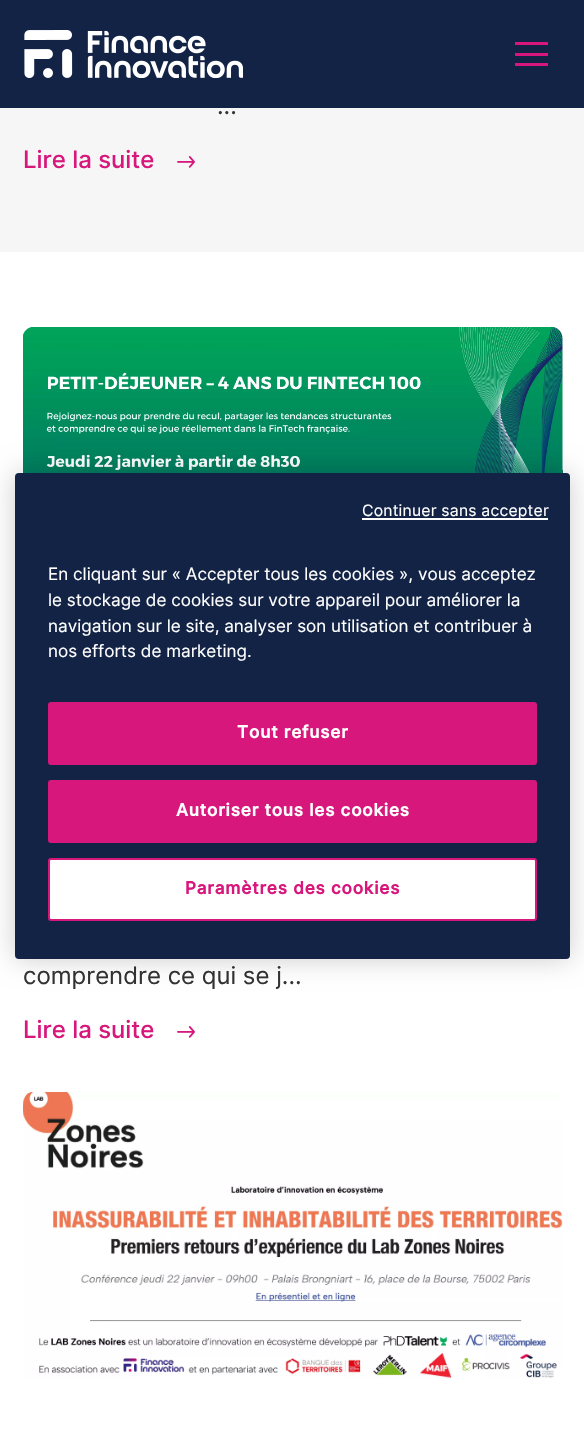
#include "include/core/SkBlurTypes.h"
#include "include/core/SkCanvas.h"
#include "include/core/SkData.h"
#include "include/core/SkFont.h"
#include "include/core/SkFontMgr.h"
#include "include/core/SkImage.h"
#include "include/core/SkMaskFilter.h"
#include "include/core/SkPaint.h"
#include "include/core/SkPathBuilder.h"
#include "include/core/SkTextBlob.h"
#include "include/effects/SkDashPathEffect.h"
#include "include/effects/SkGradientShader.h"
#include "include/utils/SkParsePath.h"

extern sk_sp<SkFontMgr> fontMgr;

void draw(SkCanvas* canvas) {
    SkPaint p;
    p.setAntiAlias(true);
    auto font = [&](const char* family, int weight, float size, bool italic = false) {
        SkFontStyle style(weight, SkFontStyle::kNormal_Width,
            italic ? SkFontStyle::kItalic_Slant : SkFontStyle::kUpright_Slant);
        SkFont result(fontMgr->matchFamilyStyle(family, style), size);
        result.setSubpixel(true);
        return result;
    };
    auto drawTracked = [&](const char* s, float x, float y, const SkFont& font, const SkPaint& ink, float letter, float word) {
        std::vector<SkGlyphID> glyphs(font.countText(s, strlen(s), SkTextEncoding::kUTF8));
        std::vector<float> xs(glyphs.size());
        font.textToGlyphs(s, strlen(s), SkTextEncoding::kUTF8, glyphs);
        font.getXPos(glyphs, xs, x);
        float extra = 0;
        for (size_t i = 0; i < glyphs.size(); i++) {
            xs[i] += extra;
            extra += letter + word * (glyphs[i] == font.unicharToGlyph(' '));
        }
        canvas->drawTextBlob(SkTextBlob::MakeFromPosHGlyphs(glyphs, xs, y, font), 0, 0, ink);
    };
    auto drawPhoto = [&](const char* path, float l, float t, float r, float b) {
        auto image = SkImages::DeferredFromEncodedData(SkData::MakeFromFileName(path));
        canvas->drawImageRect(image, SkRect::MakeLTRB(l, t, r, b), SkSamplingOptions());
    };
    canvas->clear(0xFFFFFFFF);
    p.setColor(0xFF132346);
    canvas->drawRect(SkRect::MakeLTRB(0, 0, 584, 108), p);
    drawPhoto("media/1.png", 24, 30, 243, 78);
    {
        const struct { float l, t, r, b; SkColor color; } items[] = {
            {515, 53, 548, 56, 0xFFD7177C},
            {515, 42, 548, 45, 0xFFD7177C},
            {515, 63, 548, 66, 0xFFD7177C},
            {0, 108, 584, 252, 0xFFF6F6F6},
        };
        for (auto [l, t, r, b, color] : items) {
            p.setColor(color);
            canvas->drawRect(SkRect::MakeLTRB(l, t, r, b), p);
        }
    }
    auto font1 = font("Inter", 400, 24);
    p.setColor(0xFF333333);
    canvas->drawString("...", 217, 114, font1, p);
    auto font2 = font("Inter", 500, 24);
    p.setColor(0xFFD7177C);
    canvas->drawString("Lire la suite", 23, 168, font2, p);
    drawPhoto("media/2.png", 177, 156, 195, 168);
    drawPhoto("media/3.png", 23, 327, 563, 473);
    p.setColor(0xFF333333);
    canvas->drawString("comprendre ce qui se j...", 23, 984, font1, p);
    p.setColor(0xFFD7177C);
    canvas->drawString("Lire la suite", 23, 1038, font2, p);
    drawPhoto("media/4.png", 177, 1026, 195, 1038);
    drawPhoto("media/5.png", 23, 1092, 563, 1379);
    p.setColor(0x33000000);
    p.setMaskFilter(SkMaskFilter::MakeBlur(kNormal_SkBlurStyle, 13.5f));
    canvas->drawRoundRect(SkRect::MakeLTRB(15, 473, 570, 959), 4, 4, p);
    p.setMaskFilter(nullptr);
    p.setColor(0xFF132346);
    canvas->drawRoundRect(SkRect::MakeLTRB(15, 473, 570, 959), 4, 4, p);
    p.setColor(0xFFFFFFFF);
    canvas->drawRect(SkRect::MakeLTRB(362, 518, 548, 520), p);
    auto font3 = font("Inter", 400, 15.75f);
    drawTracked("Continuer sans accepter", 362, 516, font3, p, 0.2f, 0);
    auto font4 = font("Inter", 400, 17.1f);
    {
        const struct { const char* s; float x, y; } items[] = {
            {"En cliquant sur « Accepter tous les cookies », vous acceptez", 48, 580},
            {"le stockage de cookies sur votre appareil pour améliorer la", 48, 606},
            {"navigation sur le site, analyser son utilisation et contribuer à", 48, 632},
            {"nos efforts de marketing.", 48, 657},
        };
        for (auto [s, x, y] : items) {
            canvas->drawString(s, x, y, font4, p);
        }
    }
    p.setColor(0xFFD7177C);
    canvas->drawRoundRect(SkRect::MakeLTRB(49, 703, 536, 764), 2, 2, p);
    p.setStyle(SkPaint::kStroke_Style);
    p.setStrokeWidth(2);
    canvas->drawRoundRect(SkRect::MakeLTRB(49, 703, 536, 764), 2, 2, p);
    auto font5 = font("Inter", 700, 17.1f);
    p.setStyle(SkPaint::kFill_Style);
    p.setColor(0xFFFFFFFF);
    drawTracked("Tout refuser", 237, 738, font5, p, 0.85f, 0);
    p.setColor(0xFFD7177C);
    canvas->drawRoundRect(SkRect::MakeLTRB(49, 781, 536, 842), 2, 2, p);
    p.setStyle(SkPaint::kStroke_Style);
    canvas->drawRoundRect(SkRect::MakeLTRB(49, 781, 536, 842), 2, 2, p);
    p.setStyle(SkPaint::kFill_Style);
    p.setColor(0xFFFFFFFF);
    drawTracked("Autoriser tous les cookies", 176, 816, font5, p, 0.85f, 0);
    canvas->drawRoundRect(SkRect::MakeLTRB(49, 859, 536, 920), 2, 2, p);
    p.setStyle(SkPaint::kStroke_Style);
    p.setColor(0xFFD7177C);
    canvas->drawRoundRect(SkRect::MakeLTRB(49, 859, 536, 920), 2, 2, p);
    p.setStyle(SkPaint::kFill_Style);
    drawTracked("Paramètres des cookies", 185, 894, font5, p, 0.85f, 0);
}
